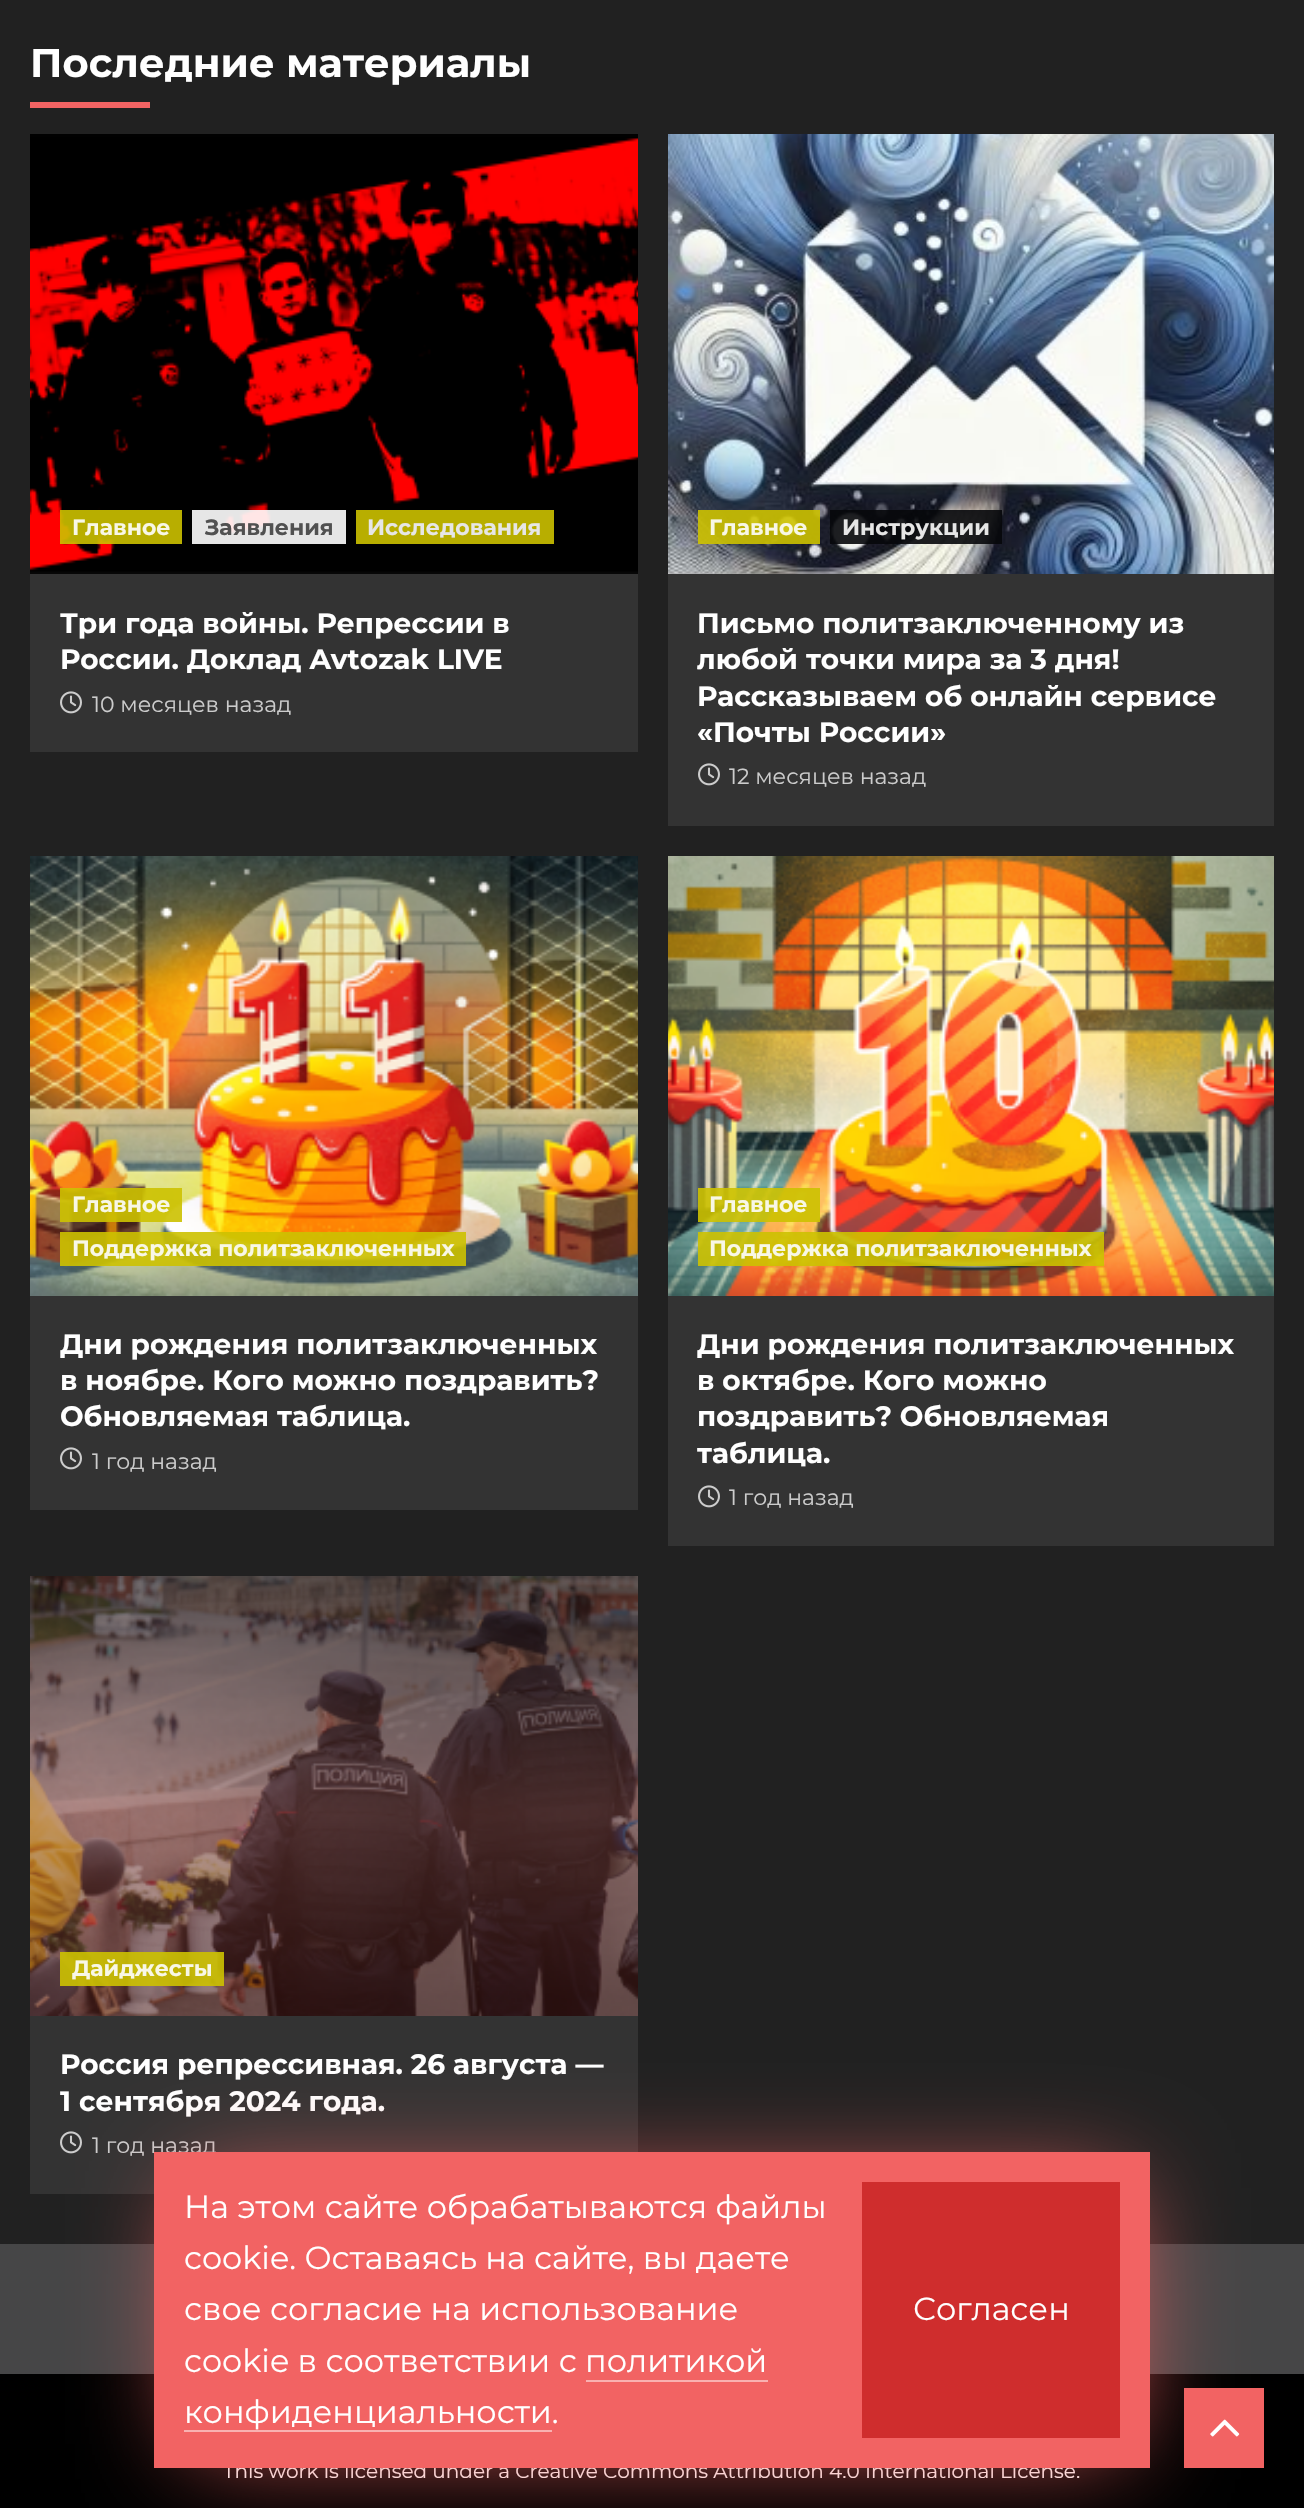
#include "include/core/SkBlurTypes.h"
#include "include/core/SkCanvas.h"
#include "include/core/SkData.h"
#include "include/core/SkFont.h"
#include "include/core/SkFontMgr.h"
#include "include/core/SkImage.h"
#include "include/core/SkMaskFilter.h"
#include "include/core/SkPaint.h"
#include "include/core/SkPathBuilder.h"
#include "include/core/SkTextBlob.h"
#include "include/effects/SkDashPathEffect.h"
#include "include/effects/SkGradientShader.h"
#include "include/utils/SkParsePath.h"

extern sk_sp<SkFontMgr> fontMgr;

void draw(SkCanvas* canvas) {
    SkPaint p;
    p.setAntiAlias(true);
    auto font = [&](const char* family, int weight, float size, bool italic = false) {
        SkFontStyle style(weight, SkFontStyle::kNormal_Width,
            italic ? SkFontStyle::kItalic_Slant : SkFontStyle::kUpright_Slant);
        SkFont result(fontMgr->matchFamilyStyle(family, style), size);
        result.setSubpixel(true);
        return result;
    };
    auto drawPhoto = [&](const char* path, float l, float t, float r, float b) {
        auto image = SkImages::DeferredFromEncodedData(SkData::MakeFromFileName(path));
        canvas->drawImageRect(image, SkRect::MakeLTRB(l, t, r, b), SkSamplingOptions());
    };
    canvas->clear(0xFF212121);
    auto font1 = font("Montserrat", 700, 40);
    p.setColor(0xFFFFFFFF);
    canvas->drawString("Последние материалы", 30, 77, font1, p);
    p.setColor(0xFFF26363);
    canvas->drawRect(SkRect::MakeLTRB(30, 102, 150, 108), p);
    p.setColor(0xFF333333);
    canvas->drawRect(SkRect::MakeLTRB(30, 134, 638, 752), p);
    drawPhoto("media/1.png", 30, 134, 638, 574);
    p.setColor(0xE6CCC100);
    canvas->drawRect(SkRect::MakeLTRB(60, 510, 182, 544), p);
    auto font2 = font("Montserrat", 700, 22);
    p.setColor(0xFFF8F7E6);
    canvas->drawString("Главное", 72, 535, font2, p);
    p.setColor(0xE6FFFFFF);
    canvas->drawRect(SkRect::MakeLTRB(192, 510, 346, 544), p);
    p.setColor(0xFF515151);
    canvas->drawString("Заявления", 205, 535, font2, p);
    p.setColor(0xFFB8AE00);
    canvas->drawRect(SkRect::MakeLTRB(356, 510, 554, 544), p);
    p.setColor(0xFFE6E6E6);
    canvas->drawString("Исследования", 367, 535, font2, p);
    auto font3 = font("Montserrat", 700, 28);
    p.setColor(0xFFFFFFFF);
    canvas->drawString("Три года войны. Репрессии в", 60, 633, font3, p);
    canvas->drawString("России. Доклад Avtozak LIVE", 60, 669, font3, p);
    drawPhoto("media/2.png", 60, 691, 82, 714);
    auto font4 = font("Montserrat", 400, 22);
    p.setColor(0xFFCCCCCC);
    canvas->drawString("10 месяцев назад", 92, 712, font4, p);
    p.setColor(0xFF333333);
    canvas->drawRect(SkRect::MakeLTRB(668, 574, 1274, 826), p);
    drawPhoto("media/3.png", 668, 134, 1274, 574);
    p.setColor(0xE6CCC100);
    canvas->drawRect(SkRect::MakeLTRB(698, 510, 820, 544), p);
    p.setColor(0xFFF8F7E6);
    canvas->drawString("Главное", 709, 535, font2, p);
    p.setColor(0xE605070A);
    canvas->drawRect(SkRect::MakeLTRB(830, 510, 1002, 544), p);
    p.setColor(0xFFE6E6E6);
    canvas->drawString("Инструкции", 842, 535, font2, p);
    p.setColor(0xFFFFFFFF);
    {
        const struct { const char* s; float x, y; } items[] = {
            {"Письмо политзаключенному из", 697, 633},
            {"любой точки мира за 3 дня!", 697, 669},
            {"Рассказываем об онлайн сервисе", 697, 706},
            {"«Почты России»", 697, 742},
        };
        for (auto [s, x, y] : items) {
            canvas->drawString(s, x, y, font3, p);
        }
    }
    drawPhoto("media/2.png", 698, 763, 720, 786);
    p.setColor(0xFFCCCCCC);
    canvas->drawString("12 месяцев назад", 729, 784, font4, p);
    p.setColor(0xFF333333);
    canvas->drawRect(SkRect::MakeLTRB(30, 1296, 638, 1510), p);
    drawPhoto("media/4.png", 30, 856, 638, 1296);
    p.setColor(0xE6CCC100);
    canvas->drawRect(SkRect::MakeLTRB(60, 1188, 182, 1222), p);
    p.setColor(0xFFF8F7E6);
    canvas->drawString("Главное", 72, 1212, font2, p);
    p.setColor(0xE6CCC100);
    canvas->drawRect(SkRect::MakeLTRB(60, 1232, 466, 1266), p);
    p.setColor(0xFFF8F7E6);
    canvas->drawString("Поддержка политзаключенных", 72, 1256, font2, p);
    p.setColor(0xFFFFFFFF);
    {
        const struct { const char* s; float x, y; } items[] = {
            {"Дни рождения политзаключенных", 60, 1354},
            {"в ноябре. Кого можно поздравить?", 60, 1390},
            {"Обновляемая таблица.", 60, 1426},
        };
        for (auto [s, x, y] : items) {
            canvas->drawString(s, x, y, font3, p);
        }
    }
    drawPhoto("media/2.png", 60, 1447, 82, 1470);
    p.setColor(0xFFCCCCCC);
    canvas->drawString("1 год назад", 92, 1469, font4, p);
    p.setColor(0xFF333333);
    canvas->drawRect(SkRect::MakeLTRB(668, 1296, 1274, 1546), p);
    drawPhoto("media/5.png", 668, 856, 1274, 1296);
    p.setColor(0xE6CCC100);
    canvas->drawRect(SkRect::MakeLTRB(698, 1188, 820, 1222), p);
    p.setColor(0xFFF8F7E6);
    canvas->drawString("Главное", 709, 1212, font2, p);
    p.setColor(0xE6CCC100);
    canvas->drawRect(SkRect::MakeLTRB(698, 1232, 1104, 1266), p);
    p.setColor(0xFFF8F7E6);
    canvas->drawString("Поддержка политзаключенных", 709, 1256, font2, p);
    p.setColor(0xFFFFFFFF);
    {
        const struct { const char* s; float x, y; } items[] = {
            {"Дни рождения политзаключенных", 697, 1354},
            {"в октябре. Кого можно", 697, 1390},
            {"поздравить? Обновляемая", 697, 1426},
            {"таблица.", 697, 1463},
        };
        for (auto [s, x, y] : items) {
            canvas->drawString(s, x, y, font3, p);
        }
    }
    drawPhoto("media/2.png", 698, 1485, 720, 1508);
    p.setColor(0xFFCCCCCC);
    canvas->drawString("1 год назад", 729, 1505, font4, p);
    p.setColor(0xFF333333);
    canvas->drawRect(SkRect::MakeLTRB(30, 2016, 638, 2194), p);
    drawPhoto("media/6.png", 30, 1576, 638, 2016);
    p.setColor(0xE6CCC100);
    canvas->drawRect(SkRect::MakeLTRB(60, 1952, 224, 1986), p);
    p.setColor(0xFFF8F7E6);
    canvas->drawString("Дайджесты", 72, 1976, font2, p);
    p.setColor(0xFFFFFFFF);
    canvas->drawString("Россия репрессивная. 26 августа —", 60, 2074, font3, p);
    canvas->drawString("1 сентября 2024 года.", 60, 2111, font3, p);
    drawPhoto("media/2.png", 60, 2131, 82, 2154);
    p.setColor(0xFFCCCCCC);
    canvas->drawString("1 год назад", 92, 2153, font4, p);
    p.setColor(0xFF464647);
    canvas->drawRect(SkRect::MakeLTRB(0, 2244, 1304, 2374), p);
    p.setColor(0xFF000000);
    canvas->drawRect(SkRect::MakeLTRB(0, 2374, 1304, 2508), p);
    auto font5 = font("Montserrat", 400, 20);
    p.setColor(0xFFFFFFFF);
    canvas->drawString("This work is licensed under a Creative Commons Attribution 4.0 International License.", 223, 2478, font5, p);
    p.setColor(0xFFF26363);
    p.setMaskFilter(SkMaskFilter::MakeBlur(kNormal_SkBlurStyle, 52));
    canvas->drawRect(SkRect::MakeLTRB(190, 2188, 1126, 2444), p);
    p.setMaskFilter(nullptr);
    canvas->drawRect(SkRect::MakeLTRB(154, 2152, 1150, 2468), p);
    auto font6 = font("Montserrat", 400, 32);
    p.setColor(0xFFFFFFFF);
    {
        const struct { const char* s; float x, y; } items[] = {
            {"На этом сайте обрабатываются файлы", 184, 2218},
            {"cookie. Оставаясь на сайте, вы даете", 184, 2269},
            {"свое согласие на использование", 184, 2320},
            {"cookie в соответствии с политикой", 184, 2372},
            {"конфиденциальности.", 184, 2423},
        };
        for (auto [s, x, y] : items) {
            canvas->drawString(s, x, y, font6, p);
        }
    }
    {
        const struct { float l, t, r, b; SkColor color; } items[] = {
            {586, 2380, 768, 2382, 0xFFF9B1B1},
            {184, 2430, 552, 2432, 0xFFF9B1B1},
            {862, 2182, 1120, 2438, 0xFFCF2D2D},
        };
        for (auto [l, t, r, b, color] : items) {
            p.setColor(color);
            canvas->drawRect(SkRect::MakeLTRB(l, t, r, b), p);
        }
    }
    p.setColor(0xFFFFFFFF);
    canvas->drawString("Согласен", 913, 2320, font6, p);
    p.setColor(0xFFF26363);
    canvas->drawRect(SkRect::MakeLTRB(1184, 2388, 1264, 2468), p);
    drawPhoto("media/7.png", 1210, 2419, 1240, 2437);
}
